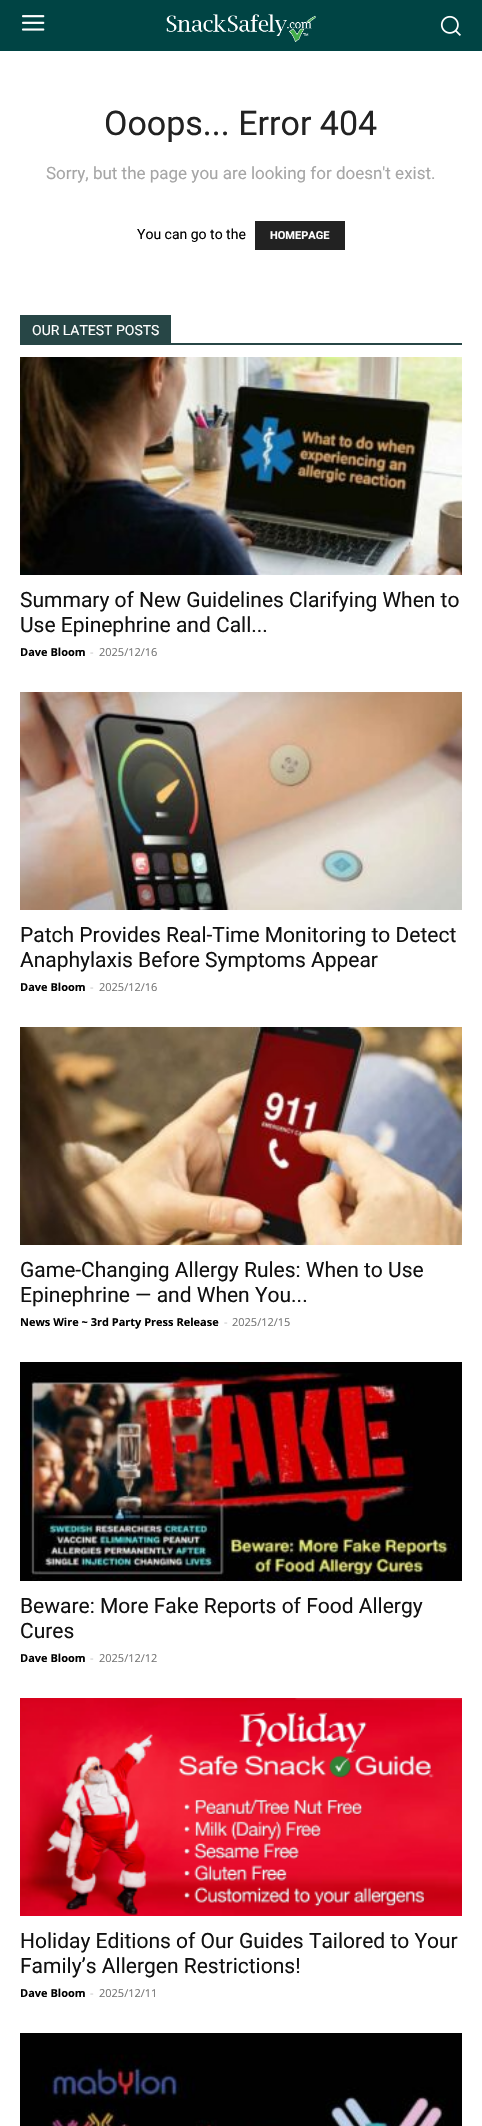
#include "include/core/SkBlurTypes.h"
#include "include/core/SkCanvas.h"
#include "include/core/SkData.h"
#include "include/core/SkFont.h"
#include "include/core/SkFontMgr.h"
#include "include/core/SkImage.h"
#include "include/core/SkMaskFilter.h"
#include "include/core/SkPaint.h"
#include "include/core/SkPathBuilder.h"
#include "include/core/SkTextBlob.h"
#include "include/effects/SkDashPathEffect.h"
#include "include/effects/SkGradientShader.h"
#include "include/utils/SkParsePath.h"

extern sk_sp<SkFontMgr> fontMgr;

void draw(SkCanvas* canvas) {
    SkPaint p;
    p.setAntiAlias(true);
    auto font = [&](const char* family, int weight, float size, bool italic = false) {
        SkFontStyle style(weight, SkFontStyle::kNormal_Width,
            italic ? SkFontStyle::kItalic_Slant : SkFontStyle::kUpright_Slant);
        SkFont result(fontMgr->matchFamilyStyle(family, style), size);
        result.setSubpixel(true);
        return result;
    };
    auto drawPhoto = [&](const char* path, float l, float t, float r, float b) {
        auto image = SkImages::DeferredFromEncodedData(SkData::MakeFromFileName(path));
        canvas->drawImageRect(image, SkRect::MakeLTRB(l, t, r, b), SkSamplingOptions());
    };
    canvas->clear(0xFFFFFFFF);
    p.setColor(0xFF004444);
    canvas->drawRect(SkRect::MakeLTRB(0, 0, 482, 51), p);
    drawPhoto("media/1.png", 22, 15, 45, 31);
    drawPhoto("media/2.png", 166, 14, 316, 42);
    drawPhoto("media/3.png", 440, 15, 461, 36);
    auto font1 = font("Roboto", 400, 34);
    p.setColor(0xFF222222);
    canvas->drawString("Ooops... Error 404", 104, 135, font1, p);
    auto font2 = font("Roboto", 400, 17);
    p.setColor(0xFFA6A6A6);
    canvas->drawString("Sorry, but the page you are looking for doesn't exist.", 46, 179, font2, p);
    auto font3 = font("Roboto", 400, 14);
    p.setColor(0xFF000000);
    canvas->drawString("You can go to the", 137, 239, font3, p);
    p.setColor(0xFF222222);
    canvas->drawRect(SkRect::MakeLTRB(255, 221, 345, 250), p);
    auto font4 = font("Roboto", 700, 11);
    p.setColor(0xFFFFFFFF);
    canvas->drawString("HOMEPAGE", 270, 239, font4, p);
    p.setColor(0xFF274646);
    canvas->drawRect(SkRect::MakeLTRB(20, 343, 462, 345), p);
    canvas->drawRect(SkRect::MakeLTRB(20, 315, 171, 343), p);
    p.setColor(0xFFFFFFFF);
    canvas->drawString("OUR LATEST POSTS", 32, 335, font3, p);
    drawPhoto("media/4.png", 20, 357, 462, 575);
    auto font5 = font("Roboto", 400, 21);
    p.setColor(0xFF111111);
    canvas->drawString("Summary of New Guidelines Clarifying When to", 20, 607, font5, p);
    canvas->drawString("Use Epinephrine and Call...", 20, 632, font5, p);
    auto font6 = font("Open Sans", 700, 11);
    p.setColor(0xFF000000);
    canvas->drawString("Dave Bloom", 20, 656, font6, p);
    auto font7 = font("Open Sans", 400, 11);
    p.setColor(0xFFCCCCCC);
    canvas->drawString("-", 90, 656, font7, p);
    p.setColor(0xFF767676);
    canvas->drawString("2025/12/16", 99, 656, font7, p);
    drawPhoto("media/5.png", 20, 692, 462, 910);
    p.setColor(0xFF111111);
    canvas->drawString("Patch Provides Real-Time Monitoring to Detect", 20, 942, font5, p);
    canvas->drawString("Anaphylaxis Before Symptoms Appear", 20, 967, font5, p);
    p.setColor(0xFF000000);
    canvas->drawString("Dave Bloom", 20, 991, font6, p);
    p.setColor(0xFFCCCCCC);
    canvas->drawString("-", 90, 991, font7, p);
    p.setColor(0xFF767676);
    canvas->drawString("2025/12/16", 99, 991, font7, p);
    drawPhoto("media/6.png", 20, 1027, 462, 1245);
    p.setColor(0xFF111111);
    canvas->drawString("Game-Changing Allergy Rules: When to Use", 20, 1277, font5, p);
    canvas->drawString("Epinephrine — and When You...", 20, 1302, font5, p);
    p.setColor(0xFF000000);
    canvas->drawString("News Wire ~ 3rd Party Press Release", 20, 1326, font6, p);
    p.setColor(0xFFCCCCCC);
    canvas->drawString("-", 224, 1326, font7, p);
    p.setColor(0xFF767676);
    canvas->drawString("2025/12/15", 232, 1326, font7, p);
    drawPhoto("media/7.png", 20, 1362, 462, 1581);
    p.setColor(0xFF111111);
    canvas->drawString("Beware: More Fake Reports of Food Allergy", 20, 1613, font5, p);
    canvas->drawString("Cures", 20, 1638, font5, p);
    p.setColor(0xFF000000);
    canvas->drawString("Dave Bloom", 20, 1662, font6, p);
    p.setColor(0xFFCCCCCC);
    canvas->drawString("-", 90, 1662, font7, p);
    p.setColor(0xFF767676);
    canvas->drawString("2025/12/12", 99, 1662, font7, p);
    drawPhoto("media/8.png", 20, 1698, 462, 1916);
    p.setColor(0xFF111111);
    canvas->drawString("Holiday Editions of Our Guides Tailored to Your", 20, 1948, font5, p);
    canvas->drawString("Family’s Allergen Restrictions!", 20, 1973, font5, p);
    p.setColor(0xFF000000);
    canvas->drawString("Dave Bloom", 20, 1997, font6, p);
    p.setColor(0xFFCCCCCC);
    canvas->drawString("-", 90, 1997, font7, p);
    p.setColor(0xFF767676);
    canvas->drawString("2025/12/11", 99, 1997, font7, p);
    drawPhoto("media/9.png", 20, 2033, 462, 2126);
}
